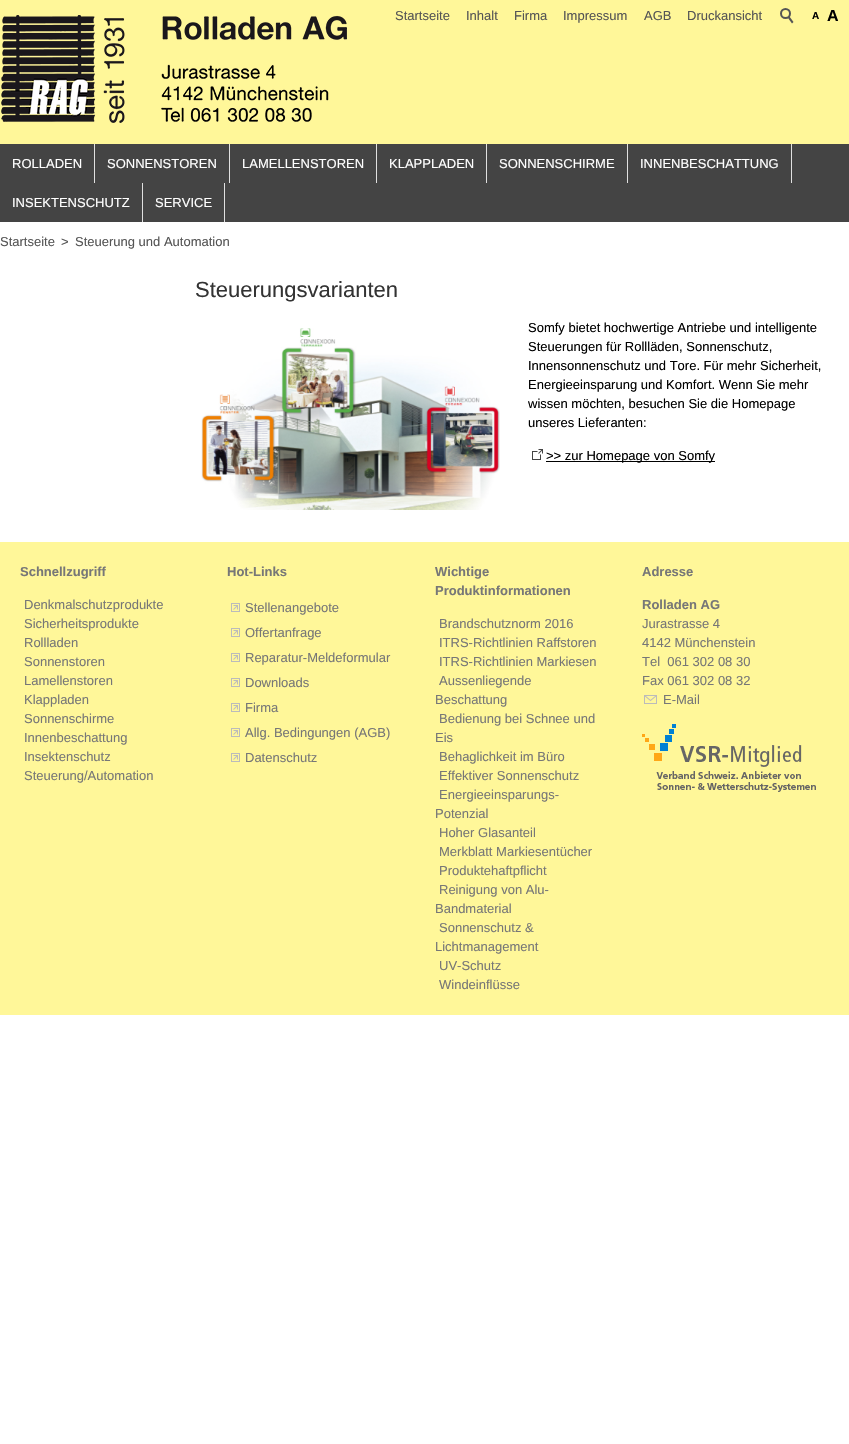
#include "include/core/SkBlurTypes.h"
#include "include/core/SkCanvas.h"
#include "include/core/SkData.h"
#include "include/core/SkFont.h"
#include "include/core/SkFontMgr.h"
#include "include/core/SkImage.h"
#include "include/core/SkMaskFilter.h"
#include "include/core/SkPaint.h"
#include "include/core/SkPathBuilder.h"
#include "include/core/SkTextBlob.h"
#include "include/effects/SkDashPathEffect.h"
#include "include/effects/SkGradientShader.h"
#include "include/utils/SkParsePath.h"

extern sk_sp<SkFontMgr> fontMgr;

void draw(SkCanvas* canvas) {
    SkPaint p;
    p.setAntiAlias(true);
    auto font = [&](const char* family, int weight, float size, bool italic = false) {
        SkFontStyle style(weight, SkFontStyle::kNormal_Width,
            italic ? SkFontStyle::kItalic_Slant : SkFontStyle::kUpright_Slant);
        SkFont result(fontMgr->matchFamilyStyle(family, style), size);
        result.setSubpixel(true);
        return result;
    };
    auto drawPhoto = [&](const char* path, float l, float t, float r, float b) {
        auto image = SkImages::DeferredFromEncodedData(SkData::MakeFromFileName(path));
        canvas->drawImageRect(image, SkRect::MakeLTRB(l, t, r, b), SkSamplingOptions());
    };
    canvas->clear(0xFFFFFFFF);
    p.setColor(0xFFFFF799);
    canvas->drawRect(SkRect::MakeLTRB(0, 0, 849, 144), p);
    drawPhoto("media/1.png", 1, 15, 347, 123);
    auto font1 = font("Liberation Sans", 400, 13);
    p.setColor(0xFF555555);
    {
        const struct { const char* s; float x, y; } items[] = {
            {"Startseite", 395, 20},
            {"Inhalt", 466, 20},
            {"Firma", 514, 20},
            {"Impressum", 563, 20},
            {"AGB", 644, 20},
            {"Druckansicht", 687, 20},
        };
        for (auto [s, x, y] : items) {
            canvas->drawString(s, x, y, font1, p);
        }
    }
    p.setStyle(SkPaint::kStroke_Style);
    p.setStrokeWidth(2);
    canvas->drawCircle(785.5f, 13.5f, 4.5f, p);
    p.setStyle(SkPaint::kFill_Style);
    canvas->drawPath(SkPathBuilder().moveTo(789.5f, 16.5f).lineTo(793.5f, 22).lineTo(792, 23.5f).lineTo(788, 18).close().detach(), p);
    auto font2 = font("Liberation Sans", 700, 10);
    p.setColor(0xFF000000);
    canvas->drawString("A", 812, 19, font2, p);
    auto font3 = font("Liberation Sans", 700, 16);
    canvas->drawString("A", 827, 21, font3, p);
    p.setColor(0xFF444444);
    canvas->drawRect(SkRect::MakeLTRB(0, 144, 849, 222), p);
    p.setColor(0xFFE0E0E0);
    canvas->drawRect(SkRect::MakeLTRB(94, 144, 95, 183), p);
    p.setColor(0xFFFFFFFF);
    canvas->drawString("ROLLADEN", 12, 168, font1, p);
    p.setColor(0xFFE0E0E0);
    canvas->drawRect(SkRect::MakeLTRB(229, 144, 230, 183), p);
    p.setColor(0xFFFFFFFF);
    canvas->drawString("SONNENSTOREN", 107, 168, font1, p);
    p.setColor(0xFFE0E0E0);
    canvas->drawRect(SkRect::MakeLTRB(376, 144, 377, 183), p);
    p.setColor(0xFFFFFFFF);
    canvas->drawString("LAMELLENSTOREN", 242, 168, font1, p);
    p.setColor(0xFFE0E0E0);
    canvas->drawRect(SkRect::MakeLTRB(486, 144, 487, 183), p);
    p.setColor(0xFFFFFFFF);
    canvas->drawString("KLAPPLADEN", 389, 168, font1, p);
    p.setColor(0xFFE0E0E0);
    canvas->drawRect(SkRect::MakeLTRB(627, 144, 628, 183), p);
    p.setColor(0xFFFFFFFF);
    canvas->drawString("SONNENSCHIRME", 499, 168, font1, p);
    p.setColor(0xFFE0E0E0);
    canvas->drawRect(SkRect::MakeLTRB(791, 144, 792, 183), p);
    p.setColor(0xFFFFFFFF);
    canvas->drawString("INNENBESCHATTUNG", 640, 168, font1, p);
    p.setColor(0xFFE0E0E0);
    canvas->drawRect(SkRect::MakeLTRB(142, 183, 143, 222), p);
    p.setColor(0xFFFFFFFF);
    canvas->drawString("INSEKTENSCHUTZ", 12, 207, font1, p);
    p.setColor(0xFFE0E0E0);
    canvas->drawRect(SkRect::MakeLTRB(224, 183, 225, 222), p);
    p.setColor(0xFFFFFFFF);
    canvas->drawString("SERVICE", 155, 207, font1, p);
    p.setColor(0xFF555555);
    {
        const struct { const char* s; float x, y; } items[] = {
            {"Startseite", 0, 246},
            {">", 61, 246},
            {"Steuerung und Automation", 75, 246},
        };
        for (auto [s, x, y] : items) {
            canvas->drawString(s, x, y, font1, p);
        }
    }
    auto font4 = font("Liberation Sans", 400, 22);
    p.setColor(0xFF333333);
    canvas->drawString("Steuerungsvarianten", 195, 297, font4, p);
    drawPhoto("media/2.png", 201, 328, 500, 510);
    p.setColor(0xFF000000);
    {
        const struct { const char* s; float x, y; } items[] = {
            {"Somfy bietet hochwertige Antriebe und intelligente", 528, 332},
            {"Steuerungen für Rollläden, Sonnenschutz,", 528, 351},
            {"Innensonnenschutz und Tore. Für mehr Sicherheit,", 528, 370},
            {"Energieeinsparung und Komfort. Wenn Sie mehr", 528, 389},
            {"wissen möchten, besuchen Sie die Homepage", 528, 408},
            {"unseres Lieferanten:", 528, 427},
        };
        for (auto [s, x, y] : items) {
            canvas->drawString(s, x, y, font1, p);
        }
    }
    drawPhoto("media/3.png", 532, 449, 543, 460);
    canvas->drawRect(SkRect::MakeLTRB(546, 461, 715, 462), p);
    canvas->drawString(">> zur Homepage von Somfy", 546, 460, font1, p);
    p.setColor(0xFFFFF799);
    canvas->drawRect(SkRect::MakeLTRB(0, 542, 849, 1015), p);
    auto font5 = font("Liberation Sans", 700, 13);
    p.setColor(0xFF777777);
    canvas->drawString("Schnellzugriff", 20, 576, font5, p);
    {
        const struct { const char* s; float x, y; } items[] = {
            {"Denkmalschutzprodukte", 24, 609},
            {"Sicherheitsprodukte", 24, 628},
            {"Rollladen", 24, 647},
            {"Sonnenstoren", 24, 666},
            {"Lamellenstoren", 24, 685},
            {"Klappladen", 24, 704},
            {"Sonnenschirme", 24, 723},
            {"Innenbeschattung", 24, 742},
            {"Insektenschutz", 24, 761},
            {"Steuerung/Automation", 24, 780},
        };
        for (auto [s, x, y] : items) {
            canvas->drawString(s, x, y, font1, p);
        }
    }
    canvas->drawString("Hot-Links", 227, 576, font5, p);
    drawPhoto("media/4.png", 231, 603, 240, 612);
    canvas->drawString("Stellenangebote", 245, 612, font1, p);
    drawPhoto("media/4.png", 231, 628, 240, 637);
    canvas->drawString("Offertanfrage", 245, 637, font1, p);
    drawPhoto("media/4.png", 231, 653, 240, 662);
    canvas->drawString("Reparatur-Meldeformular", 245, 662, font1, p);
    drawPhoto("media/4.png", 231, 678, 240, 687);
    canvas->drawString("Downloads", 245, 687, font1, p);
    drawPhoto("media/4.png", 231, 703, 240, 712);
    canvas->drawString("Firma", 245, 712, font1, p);
    drawPhoto("media/4.png", 231, 728, 240, 737);
    canvas->drawString("Allg. Bedingungen (AGB)", 245, 737, font1, p);
    drawPhoto("media/4.png", 231, 753, 240, 762);
    canvas->drawString("Datenschutz", 245, 762, font1, p);
    canvas->drawString("Wichtige", 435, 576, font5, p);
    canvas->drawString("Produktinformationen", 435, 595, font5, p);
    {
        const struct { const char* s; float x, y; } items[] = {
            {"Brandschutznorm 2016", 439, 628},
            {"ITRS-Richtlinien Raffstoren", 439, 647},
            {"ITRS-Richtlinien Markiesen", 439, 666},
            {"Aussenliegende", 439, 685},
            {"Beschattung", 435, 704},
            {"Bedienung bei Schnee und", 439, 723},
            {"Eis", 435, 742},
            {"Behaglichkeit im Büro", 439, 761},
            {"Effektiver Sonnenschutz", 439, 780},
            {"Energieeinsparungs-", 439, 799},
            {"Potenzial", 435, 818},
            {"Hoher Glasanteil", 439, 837},
            {"Merkblatt Markiesentücher", 439, 856},
            {"Produktehaftpflicht", 439, 875},
            {"Reinigung von Alu-", 439, 894},
            {"Bandmaterial", 435, 913},
            {"Sonnenschutz &", 439, 932},
            {"Lichtmanagement", 435, 951},
            {"UV-Schutz", 439, 970},
            {"Windeinflüsse", 439, 989},
        };
        for (auto [s, x, y] : items) {
            canvas->drawString(s, x, y, font1, p);
        }
    }
    canvas->drawString("Adresse", 642, 576, font5, p);
    canvas->drawString("Rolladen AG", 642, 609, font5, p);
    {
        const struct { const char* s; float x, y; } items[] = {
            {"Jurastrasse 4", 642, 628},
            {"4142 Münchenstein", 642, 647},
            {"Tel  061 302 08 30", 642, 666},
            {"Fax 061 302 08 32", 642, 685},
        };
        for (auto [s, x, y] : items) {
            canvas->drawString(s, x, y, font1, p);
        }
    }
    drawPhoto("media/5.png", 644, 695, 657, 704);
    canvas->drawString("E-Mail", 663, 704, font1, p);
    drawPhoto("media/6.png", 642, 724, 816, 792);
}
